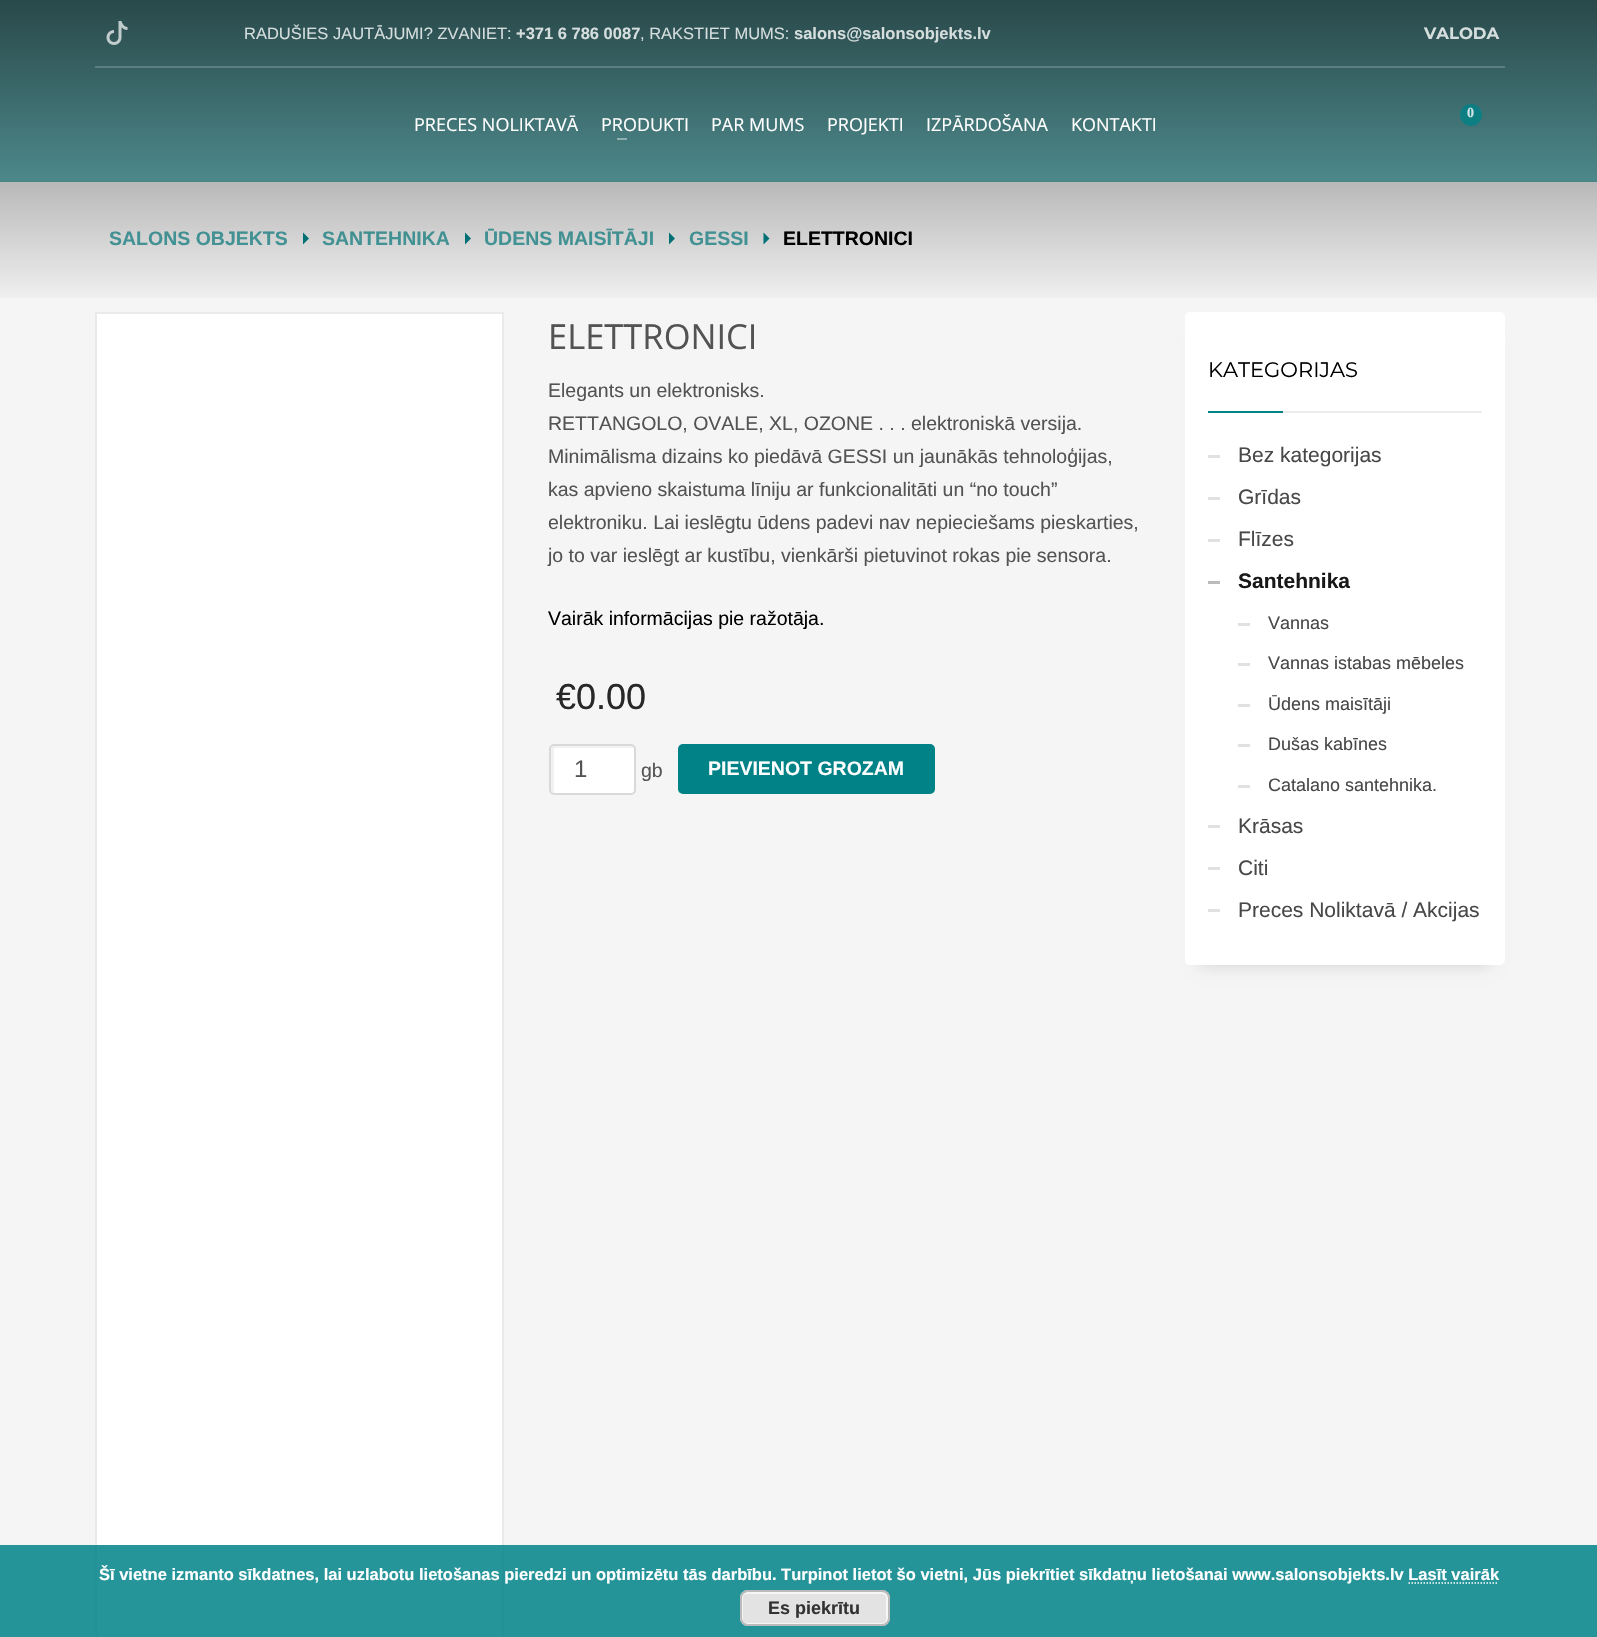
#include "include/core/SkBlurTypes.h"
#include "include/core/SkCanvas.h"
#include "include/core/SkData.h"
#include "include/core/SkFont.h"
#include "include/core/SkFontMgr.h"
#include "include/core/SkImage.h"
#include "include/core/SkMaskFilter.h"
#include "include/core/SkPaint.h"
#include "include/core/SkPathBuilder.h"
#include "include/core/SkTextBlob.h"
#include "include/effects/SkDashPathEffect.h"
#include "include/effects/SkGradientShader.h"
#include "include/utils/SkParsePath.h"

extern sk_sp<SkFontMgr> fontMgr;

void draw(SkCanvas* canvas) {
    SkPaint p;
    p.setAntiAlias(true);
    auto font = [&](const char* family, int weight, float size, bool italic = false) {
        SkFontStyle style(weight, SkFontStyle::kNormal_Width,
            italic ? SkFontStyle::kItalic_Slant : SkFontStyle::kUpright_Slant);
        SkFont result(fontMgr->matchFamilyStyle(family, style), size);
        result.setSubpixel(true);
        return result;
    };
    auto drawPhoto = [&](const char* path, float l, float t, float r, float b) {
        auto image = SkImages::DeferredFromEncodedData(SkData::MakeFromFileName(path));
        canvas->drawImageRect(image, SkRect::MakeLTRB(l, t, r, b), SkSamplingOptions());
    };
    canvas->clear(0xFFF5F5F5);
    p.setColor(0xFF62B1B4);
    canvas->drawRect(SkRect::MakeLTRB(0, 180, 1597, 182), p);
    p.setColor(0xFF66B5B8);
    canvas->drawRect(SkRect::MakeLTRB(0, 0, 1597, 180), p);
    auto font1 = font("Liberation Sans", 700, 19.5f);
    p.setColor(0xFF4CA8AB);
    canvas->drawString("SALONS OBJEKTS", 109, 245, font1, p);
    p.setColor(0xFF008287);
    canvas->drawPath(SkPathBuilder().moveTo(303, 244.5f).lineTo(303, 232.5f).lineTo(309, 238.5f).close().detach(), p);
    p.setColor(0xFF4CA8AB);
    canvas->drawString("SANTEHNIKA", 322, 245, font1, p);
    p.setColor(0xFF008287);
    canvas->drawPath(SkPathBuilder().moveTo(465, 244.5f).lineTo(465, 232.5f).lineTo(471, 238.5f).close().detach(), p);
    p.setColor(0xFF4CA8AB);
    canvas->drawString("ŪDENS MAISĪTĀJI", 484, 245, font1, p);
    p.setColor(0xFF008287);
    canvas->drawPath(SkPathBuilder().moveTo(669, 244.5f).lineTo(669, 232.5f).lineTo(675, 238.5f).close().detach(), p);
    p.setColor(0xFF4CA8AB);
    canvas->drawString("GESSI", 689, 245, font1, p);
    p.setColor(0xFF008287);
    canvas->drawPath(SkPathBuilder().moveTo(763.5f, 244.5f).lineTo(763.5f, 232.5f).lineTo(769.5f, 238.5f).close().detach(), p);
    p.setColor(0xFF000000);
    canvas->drawString("ELETTRONICI", 783, 245, font1, p);
    {
        const SkColor colors[] = {0x99000000, 0x00000000};
        const float stops[] = {0, 1};
        const SkPoint ends[] = {{799, 0}, {799, 309}};
        p.setShader(SkGradientShader::MakeLinear(ends, colors, stops, 2, SkTileMode::kClamp));
        p.setAlpha(255);
    }
    canvas->drawRect(SkRect::MakeLTRB(0, 0, 1597, 298), p);
    drawPhoto("media/1.png", 106, 21, 128, 45);
    auto font2 = font("Liberation Sans", 400, 16.5f);
    p.setShader(nullptr);
    p.setColor(0xFFD5DDDD);
    canvas->drawString("RADUŠIES JAUTĀJUMI? ZVANIET:", 244, 39, font2, p);
    auto font3 = font("Liberation Sans", 700, 16.5f);
    canvas->drawString("+371 6 786 0087", 516, 39, font3, p);
    canvas->drawString(", RAKSTIET MUMS:", 640, 39, font2, p);
    canvas->drawString("salons@salonsobjekts.lv", 794, 39, font3, p);
    auto font4 = font("Montserrat", 700, 16.5f);
    canvas->drawString("VALODA", 1424, 39, font4, p);
    p.setColor(0xFF5E7F81);
    canvas->drawRect(SkRect::MakeLTRB(95, 66, 1505, 68), p);
    p.setColor(0xCC008287);
    canvas->drawCircle(1471, 115, 11, p);
    auto font5 = font("Liberation Serif", 700, 14);
    p.setColor(0xFFCFE5E6);
    canvas->drawString("0", 1467, 117, font5, p);
    auto font6 = font("Open Sans", 400, 18);
    p.setColor(0xFFFFFFFF);
    canvas->drawString("PRECES NOLIKTAVĀ", 414, 131, font6, p);
    canvas->drawString("PRODUKTI", 601, 131, font6, p);
    p.setColor(0xFF8FAFB0);
    canvas->drawRect(SkRect::MakeLTRB(617, 138, 627, 140), p);
    p.setColor(0xFFFFFFFF);
    {
        const struct { const char* s; float x, y; } items[] = {
            {"PAR MUMS", 711, 131},
            {"PROJEKTI", 827, 131},
            {"IZPĀRDOŠANA", 926, 131},
            {"KONTAKTI", 1071, 131},
        };
        for (auto [s, x, y] : items) {
            canvas->drawString(s, x, y, font6, p);
        }
    }
    canvas->drawRect(SkRect::MakeLTRB(96, 313, 503, 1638), p);
    p.setStyle(SkPaint::kStroke_Style);
    p.setStrokeWidth(2);
    p.setColor(0xFFEAEAEA);
    canvas->drawRect(SkRect::MakeLTRB(96, 313, 503, 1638), p);
    auto font7 = font("Open Sans", 400, 34.5f);
    p.setStyle(SkPaint::kFill_Style);
    p.setColor(0xFF535353);
    canvas->drawString("ELETTRONICI", 548, 349, font7, p);
    auto font8 = font("Liberation Sans", 400, 19.5f);
    {
        const struct { const char* s; float x, y; } items[] = {
            {"Elegants un elektronisks.", 548, 397},
            {"RETTANGOLO, OVALE, XL, OZONE . . . elektroniskā versija.", 548, 430},
            {"Minimālisma dizains ko piedāvā GESSI un jaunākās tehnoloģijas,", 548, 463},
            {"kas apvieno skaistuma līniju ar funkcionalitāti un “no touch”", 548, 496},
            {"elektroniku. Lai ieslēgtu ūdens padevi nav nepieciešams pieskarties,", 548, 529},
            {"jo to var ieslēgt ar kustību, vienkārši pietuvinot rokas pie sensora.", 548, 562},
        };
        for (auto [s, x, y] : items) {
            canvas->drawString(s, x, y, font8, p);
        }
    }
    p.setColor(0xFF000000);
    canvas->drawString("Vairāk informācijas pie ražotāja.", 548, 625, font8, p);
    auto font9 = font("Liberation Sans", 400, 36);
    p.setColor(0xFF282828);
    canvas->drawString("€0.00", 556, 709, font9, p);
    p.setColor(0xFFFFFFFF);
    canvas->drawRoundRect(SkRect::MakeLTRB(549, 744, 636, 795), 5, 5, p);
    p.setColor(0xFFF2F2F2);
    canvas->drawPath(SkPathBuilder().moveTo(556, 748).lineTo(635, 748).cubicTo(634, 747, 633, 746, 632, 746).lineTo(554, 746).cubicTo(552, 746, 551, 747, 551, 749).lineTo(551, 791).cubicTo(551, 793, 552, 794, 554, 794).lineTo(554, 749).close().detach(), p);
    p.setStyle(SkPaint::kStroke_Style);
    p.setColor(0xFFD9D9D9);
    canvas->drawRoundRect(SkRect::MakeLTRB(550, 745, 635, 794), 4, 4, p);
    auto font10 = font("Liberation Sans", 400, 24);
    p.setStyle(SkPaint::kFill_Style);
    p.setColor(0xFF535353);
    canvas->drawString("1", 574, 777, font10, p);
    canvas->drawString("gb", 641, 777, font8, p);
    p.setColor(0xFF008287);
    canvas->drawRoundRect(SkRect::MakeLTRB(678, 744, 935, 794), 5, 5, p);
    p.setColor(0xFFFFFFFF);
    canvas->drawString("PIEVIENOT GROZAM", 708, 775, font1, p);
    p.setColor(0x26000000);
    p.setMaskFilter(SkMaskFilter::MakeBlur(kNormal_SkBlurStyle, 7.5f));
    canvas->drawRect(SkRect::MakeLTRB(1200, 342, 1490, 965), p);
    p.setMaskFilter(nullptr);
    p.setColor(0xFFFFFFFF);
    canvas->drawRoundRect(SkRect::MakeLTRB(1185, 312, 1505, 965), 5, 5, p);
    auto font11 = font("Montserrat", 400, 21);
    p.setColor(0xFF000000);
    canvas->drawString("KATEGORIJAS", 1208, 377, font11, p);
    {
        const struct { float l, t, r, b; SkColor color; } items[] = {
            {1208, 411, 1283, 413, 0xFF008287},
            {1283, 411, 1482, 413, 0xFFECECEC},
            {1208, 455, 1220, 458, 0xFFE1E1E1},
        };
        for (auto [l, t, r, b, color] : items) {
            p.setColor(color);
            canvas->drawRect(SkRect::MakeLTRB(l, t, r, b), p);
        }
    }
    auto font12 = font("Liberation Sans", 400, 21);
    p.setColor(0xFF484848);
    canvas->drawString("Bez kategorijas", 1238, 462, font12, p);
    p.setColor(0xFFE1E1E1);
    canvas->drawRect(SkRect::MakeLTRB(1208, 497, 1220, 500), p);
    p.setColor(0xFF484848);
    canvas->drawString("Grīdas", 1238, 504, font12, p);
    p.setColor(0xFFE1E1E1);
    canvas->drawRect(SkRect::MakeLTRB(1208, 539, 1220, 542), p);
    p.setColor(0xFF484848);
    canvas->drawString("Flīzes", 1238, 546, font12, p);
    p.setColor(0xFFBBBBBB);
    canvas->drawRect(SkRect::MakeLTRB(1208, 581, 1220, 584), p);
    auto font13 = font("Liberation Sans", 700, 21);
    p.setColor(0xFF181818);
    canvas->drawString("Santehnika", 1238, 588, font13, p);
    p.setColor(0xFFE1E1E1);
    canvas->drawRect(SkRect::MakeLTRB(1238, 623, 1250, 626), p);
    auto font14 = font("Liberation Sans", 400, 18);
    p.setColor(0xFF484848);
    canvas->drawString("Vannas", 1268, 629, font14, p);
    p.setColor(0xFFE1E1E1);
    canvas->drawRect(SkRect::MakeLTRB(1238, 663, 1250, 666), p);
    p.setColor(0xFF484848);
    canvas->drawString("Vannas istabas mēbeles", 1268, 669, font14, p);
    p.setColor(0xFFE1E1E1);
    canvas->drawRect(SkRect::MakeLTRB(1238, 704, 1250, 707), p);
    p.setColor(0xFF484848);
    canvas->drawString("Ūdens maisītāji", 1268, 710, font14, p);
    p.setColor(0xFFE1E1E1);
    canvas->drawRect(SkRect::MakeLTRB(1238, 744, 1250, 747), p);
    p.setColor(0xFF484848);
    canvas->drawString("Dušas kabīnes", 1268, 750, font14, p);
    p.setColor(0xFFE1E1E1);
    canvas->drawRect(SkRect::MakeLTRB(1238, 785, 1250, 788), p);
    p.setColor(0xFF484848);
    canvas->drawString("Catalano santehnika.", 1268, 791, font14, p);
    p.setColor(0xFFE1E1E1);
    canvas->drawRect(SkRect::MakeLTRB(1208, 825, 1220, 828), p);
    p.setColor(0xFF484848);
    canvas->drawString("Krāsas", 1238, 833, font12, p);
    p.setColor(0xFFE1E1E1);
    canvas->drawRect(SkRect::MakeLTRB(1208, 867, 1220, 870), p);
    p.setColor(0xFF484848);
    canvas->drawString("Citi", 1238, 875, font12, p);
    p.setColor(0xFFE1E1E1);
    canvas->drawRect(SkRect::MakeLTRB(1208, 909, 1220, 912), p);
    p.setColor(0xFF484848);
    canvas->drawString("Preces Noliktavā / Akcijas", 1238, 917, font12, p);
    p.setColor(0xD9008388);
    canvas->drawRect(SkRect::MakeLTRB(0, 1545, 1597, 1637), p);
    p.setColor(0xFFFFFFFF);
    canvas->drawString("Šī vietne izmanto sīkdatnes, lai uzlabotu lietošanas pieredzi un optimizētu tās darbību. Turpinot lietot šo vietni, Jūs piekrītiet sīkdatņu lietošanai www.salonsobjekts.lv Lasīt vairāk", 99, 1580, font3, p);
    p.setStyle(SkPaint::kStroke_Style);
    p.setStrokeWidth(1.5f);
    p.setPathEffect(SkDashPathEffect::Make({{1.5f, 1.5f}}, 0));
    canvas->drawPath(SkPathBuilder().moveTo(1408.5f, 1583).lineTo(1498.5f, 1583).detach(), p);
    p.setPathEffect(nullptr);
    p.setStyle(SkPaint::kFill_Style);
    p.setColor(0xFFE3E3E3);
    canvas->drawRoundRect(SkRect::MakeLTRB(740, 1590, 890, 1626), 8, 8, p);
    p.setStyle(SkPaint::kStroke_Style);
    p.setStrokeWidth(2);
    p.setColor(0xFFF6F6F6);
    canvas->drawRoundRect(SkRect::MakeLTRB(742, 1593, 887, 1624), 5, 5, p);
    p.setColor(0xFFBBBBBB);
    canvas->drawRoundRect(SkRect::MakeLTRB(741, 1591, 889, 1625), 7, 7, p);
    auto font15 = font("Liberation Sans", 700, 18);
    p.setStyle(SkPaint::kFill_Style);
    p.setColor(0xFF333333);
    canvas->drawString("Es piekrītu", 768, 1614, font15, p);
}
